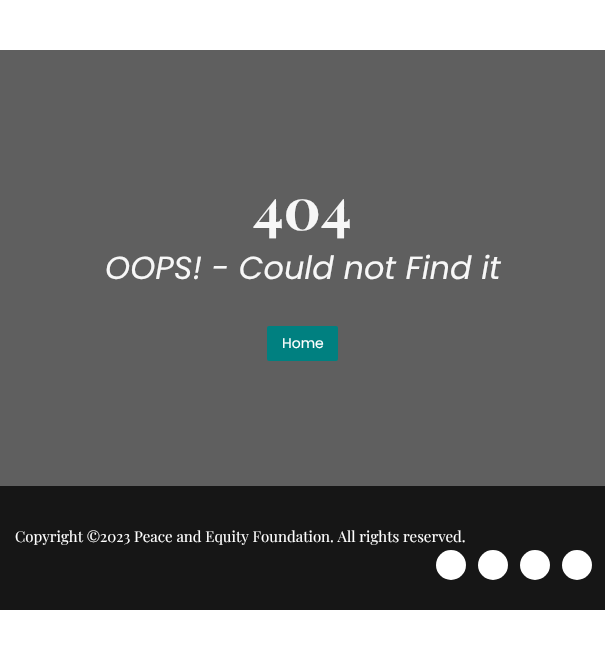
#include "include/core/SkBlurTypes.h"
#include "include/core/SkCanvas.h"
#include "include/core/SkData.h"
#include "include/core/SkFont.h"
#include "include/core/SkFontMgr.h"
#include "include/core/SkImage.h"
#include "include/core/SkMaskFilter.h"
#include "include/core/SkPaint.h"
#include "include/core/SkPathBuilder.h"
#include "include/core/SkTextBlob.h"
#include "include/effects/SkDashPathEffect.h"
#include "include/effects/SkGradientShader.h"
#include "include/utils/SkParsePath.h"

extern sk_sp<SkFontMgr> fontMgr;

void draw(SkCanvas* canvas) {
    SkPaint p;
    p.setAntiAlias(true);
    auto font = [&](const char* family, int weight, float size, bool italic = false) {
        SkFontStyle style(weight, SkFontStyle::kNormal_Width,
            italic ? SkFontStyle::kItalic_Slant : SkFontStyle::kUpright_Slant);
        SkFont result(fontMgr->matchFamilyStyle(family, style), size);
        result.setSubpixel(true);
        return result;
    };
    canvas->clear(0xFFFFFFFF);
    p.setColor(0xFF5F5F5F);
    canvas->drawRect(SkRect::MakeLTRB(0, 50, 605, 486), p);
    auto font1 = font("Playfair Display", 700, 58);
    p.setColor(0xFFF7F7F7);
    canvas->drawString("404", 253, 230, font1, p);
    auto font2 = font("Poppins", 400, 32, true);
    canvas->drawString("OOPS! - Could not Find it", 105, 279, font2, p);
    p.setColor(0xFF008080);
    canvas->drawRoundRect(SkRect::MakeLTRB(267, 326, 338, 361), 2, 2, p);
    auto font3 = font("Poppins", 400, 14);
    p.setColor(0xFFFFFFFF);
    canvas->drawString("Home", 282, 348, font3, p);
    p.setColor(0xFF161616);
    canvas->drawRect(SkRect::MakeLTRB(0, 486, 605, 610), p);
    auto font4 = font("Playfair Display", 400, 15);
    p.setColor(0xFFFFFFFF);
    canvas->drawString("Copyright ©2023 Peace and Equity Foundation. All rights reserved.", 15, 542, font4, p);
    canvas->drawCircle(451, 565, 15, p);
    canvas->drawCircle(493, 565, 15, p);
    canvas->drawCircle(535, 565, 15, p);
    canvas->drawCircle(577, 565, 15, p);
}
